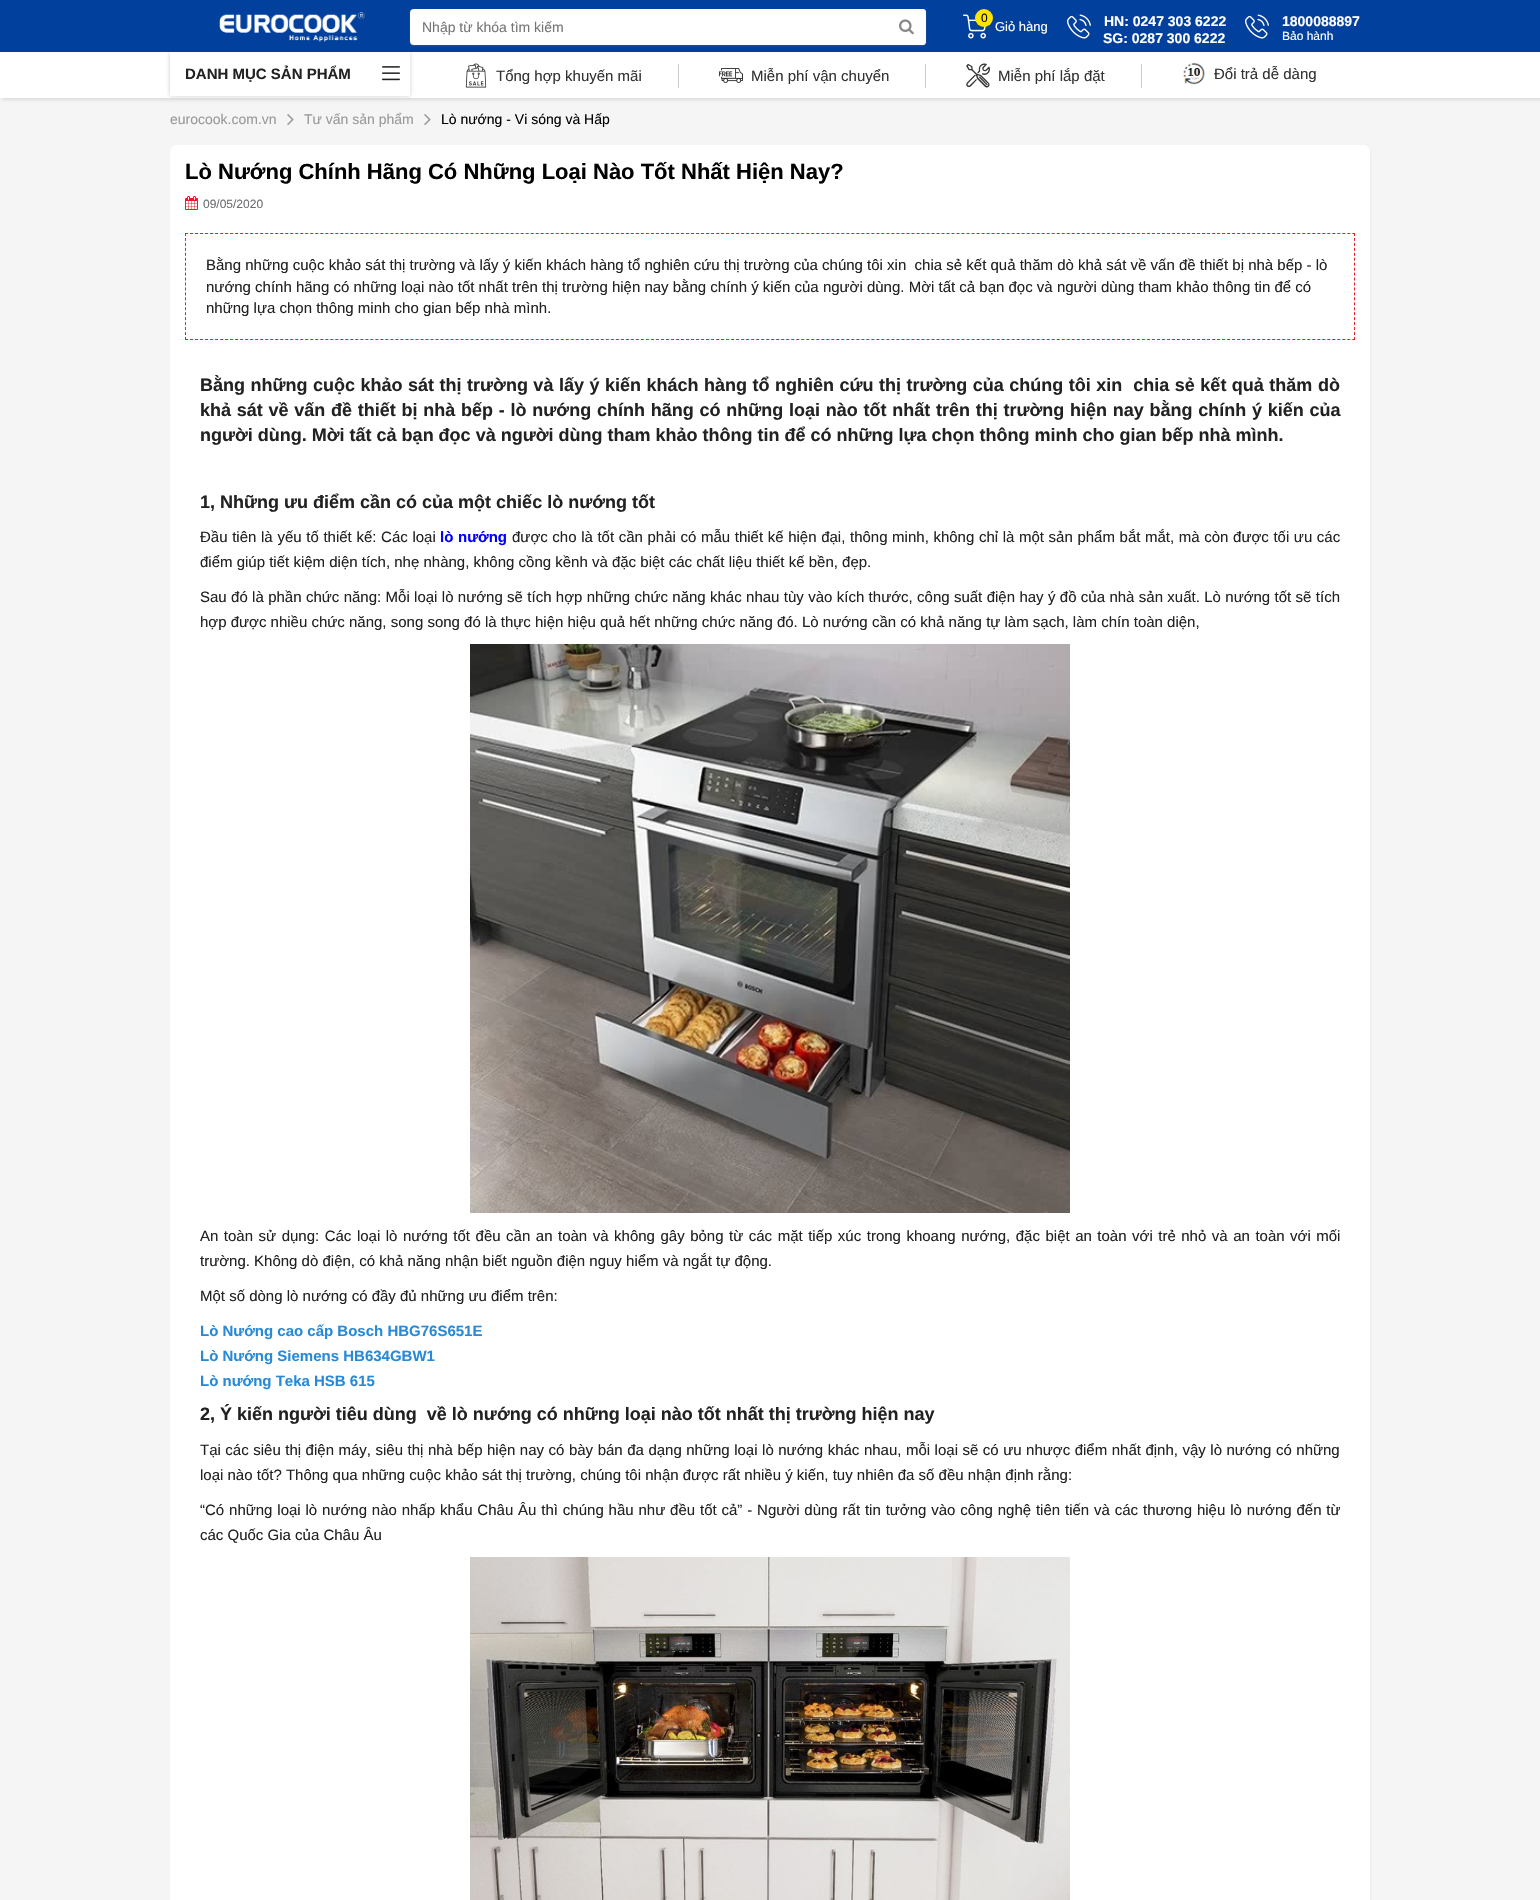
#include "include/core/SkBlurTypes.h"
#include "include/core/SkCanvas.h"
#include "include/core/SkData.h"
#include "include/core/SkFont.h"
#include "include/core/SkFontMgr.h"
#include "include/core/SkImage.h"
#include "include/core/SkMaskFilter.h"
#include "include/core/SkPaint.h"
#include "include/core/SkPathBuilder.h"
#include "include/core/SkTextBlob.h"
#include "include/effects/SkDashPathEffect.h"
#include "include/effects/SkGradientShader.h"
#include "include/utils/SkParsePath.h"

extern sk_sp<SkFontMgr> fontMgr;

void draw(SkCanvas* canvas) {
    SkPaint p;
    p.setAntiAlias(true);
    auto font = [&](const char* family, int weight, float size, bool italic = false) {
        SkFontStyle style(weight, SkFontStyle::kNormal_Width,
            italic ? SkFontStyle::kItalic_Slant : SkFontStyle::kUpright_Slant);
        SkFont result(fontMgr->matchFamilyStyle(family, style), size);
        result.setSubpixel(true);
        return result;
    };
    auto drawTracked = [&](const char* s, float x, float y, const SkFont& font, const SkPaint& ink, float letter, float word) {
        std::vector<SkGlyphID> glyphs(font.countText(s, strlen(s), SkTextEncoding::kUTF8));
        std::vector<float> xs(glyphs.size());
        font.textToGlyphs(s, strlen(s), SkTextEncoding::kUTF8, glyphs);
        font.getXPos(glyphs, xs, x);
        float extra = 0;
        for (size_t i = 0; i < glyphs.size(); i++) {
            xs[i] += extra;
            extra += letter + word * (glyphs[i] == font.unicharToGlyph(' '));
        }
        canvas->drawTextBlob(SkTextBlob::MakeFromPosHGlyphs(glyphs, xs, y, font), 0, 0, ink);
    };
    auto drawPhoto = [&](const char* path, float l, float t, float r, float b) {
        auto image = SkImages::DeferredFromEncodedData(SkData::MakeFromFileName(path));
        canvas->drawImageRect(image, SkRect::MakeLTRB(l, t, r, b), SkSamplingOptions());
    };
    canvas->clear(0xFFF5F5F5);
    p.setColor(0x1A000000);
    p.setMaskFilter(SkMaskFilter::MakeBlur(kNormal_SkBlurStyle, 1.5f));
    canvas->drawRect(SkRect::MakeLTRB(2, 54, 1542, 100), p);
    p.setMaskFilter(nullptr);
    p.setColor(0xFFFFFFFF);
    canvas->drawRect(SkRect::MakeLTRB(0, 52, 1540, 98), p);
    canvas->save();
    canvas->clipPath(SkPathBuilder(SkPathFillType::kEvenOdd).moveTo(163, 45).lineTo(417, 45).lineTo(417, 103).lineTo(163, 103).close().moveTo(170, 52).lineTo(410, 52).lineTo(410, 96).lineTo(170, 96).close().detach(), true);
    p.setColor(0x33000000);
    p.setMaskFilter(SkMaskFilter::MakeBlur(kNormal_SkBlurStyle, 2));
    canvas->drawRect(SkRect::MakeLTRB(170, 52, 410, 96), p);
    p.setMaskFilter(nullptr);
    canvas->restore();
    p.setColor(0xFF01409D);
    canvas->drawRect(SkRect::MakeLTRB(0, 0, 1540, 52), p);
    drawPhoto("media/1.png", 219, 12, 365, 42);
    p.setColor(0x80626262);
    p.setMaskFilter(SkMaskFilter::MakeBlur(kNormal_SkBlurStyle, 1));
    canvas->drawRoundRect(SkRect::MakeLTRB(410, 10, 926, 46), 4, 4, p);
    p.setMaskFilter(nullptr);
    p.setColor(0xFFFFFFFF);
    canvas->drawRoundRect(SkRect::MakeLTRB(410, 9, 926, 45), 4, 4, p);
    auto font1 = font("Liberation Sans", 400, 14);
    p.setColor(0xFF757575);
    canvas->drawString("Nhập từ khóa tìm kiếm", 422, 32, font1, p);
    p.setColor(0xFFFFFFFF);
    canvas->drawPath(SkPathBuilder().moveTo(886, 9).lineTo(923, 9).cubicTo(924.5f, 9, 926, 10.5f, 926, 12).lineTo(926, 42).cubicTo(926, 43.5f, 924.5f, 45, 923, 45).lineTo(886, 45).close().detach(), p);
    drawPhoto("media/2.png", 899, 19, 914, 35);
    drawPhoto("media/3.png", 963, 14, 986, 39);
    p.setColor(0xFFFFE300);
    canvas->drawCircle(984, 18, 9, p);
    auto font2 = font("Liberation Sans", 400, 12);
    p.setColor(0xFF000000);
    canvas->drawString("0", 981, 22, font2, p);
    auto font3 = font("Liberation Sans", 400, 13);
    p.setColor(0xFFFFFFFF);
    canvas->drawString("Giỏ hàng", 995, 31, font3, p);
    drawPhoto("media/4.png", 1067, 14, 1091, 39);
    auto font4 = font("Liberation Sans", 700, 14);
    canvas->drawString("HN: 0247 303 6222", 1104, 26, font4, p);
    canvas->drawString("SG: 0287 300 6222", 1103, 43, font4, p);
    drawPhoto("media/4.png", 1245, 14, 1269, 39);
    canvas->drawString("1800088897", 1282, 26, font4, p);
    canvas->drawString("Bảo hành", 1282, 40, font2, p);
    auto font5 = font("Liberation Sans", 700, 15);
    p.setColor(0xFF222222);
    canvas->drawString("DANH MỤC SẢN PHẨM", 185, 79, font5, p);
    drawPhoto("media/5.png", 382, 66, 400, 81);
    p.setColor(0xFFCCCCCC);
    canvas->drawRect(SkRect::MakeLTRB(678, 64, 679, 88), p);
    drawPhoto("media/6.png", 465, 63, 487, 88);
    auto font6 = font("Liberation Sans", 400, 15);
    p.setColor(0xFF333333);
    canvas->drawString("Tổng hợp khuyến mãi", 496, 81, font6, p);
    p.setColor(0xFFCCCCCC);
    canvas->drawRect(SkRect::MakeLTRB(925, 64, 926, 88), p);
    drawPhoto("media/7.png", 719, 68, 743, 83);
    p.setColor(0xFF333333);
    canvas->drawString("Miễn phí vận chuyển", 751, 81, font6, p);
    p.setColor(0xFFCCCCCC);
    canvas->drawRect(SkRect::MakeLTRB(1141, 64, 1142, 88), p);
    drawPhoto("media/8.png", 966, 63, 990, 88);
    p.setColor(0xFF333333);
    canvas->drawString("Miễn phí lắp đặt", 998, 81, font6, p);
    drawPhoto("media/9.png", 1183, 62, 1206, 85);
    canvas->drawString("Đổi trả dễ dàng", 1214, 79, font6, p);
    p.setColor(0xFF999999);
    canvas->drawString("eurocook.com.vn", 170, 124, font1, p);
    drawPhoto("media/10.png", 287, 114, 294, 125);
    canvas->drawString("Tư vấn sản phẩm", 304, 124, font1, p);
    drawPhoto("media/10.png", 424, 114, 431, 125);
    p.setColor(0xFF000000);
    canvas->drawString("Lò nướng - Vi sóng và Hấp", 441, 124, font1, p);
    p.setColor(0x80D9E4E7);
    p.setMaskFilter(SkMaskFilter::MakeBlur(kNormal_SkBlurStyle, 1.5f));
    canvas->drawRoundRect(SkRect::MakeLTRB(171, 146, 1371, 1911), 6, 6, p);
    p.setMaskFilter(nullptr);
    p.setColor(0xFFFFFFFF);
    canvas->drawRoundRect(SkRect::MakeLTRB(170, 145, 1370, 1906), 6, 6, p);
    auto font7 = font("Liberation Sans", 700, 22);
    p.setColor(0xFF000000);
    canvas->drawString("Lò Nướng Chính Hãng Có Những Loại Nào Tốt Nhất Hiện Nay?", 185, 179, font7, p);
    drawPhoto("media/11.png", 185, 196, 198, 210);
    p.setColor(0xFF6D6E71);
    canvas->drawString("09/05/2020", 203, 208, font2, p);
    p.setStyle(SkPaint::kStroke_Style);
    p.setStrokeWidth(1);
    p.setColor(0xFFEA1C24);
    p.setPathEffect(SkDashPathEffect::Make({{3, 2.01f}}, 0));
    canvas->drawPath(SkPathBuilder().moveTo(185, 233.5f).lineTo(1355, 233.5f).detach(), p);
    p.setPathEffect(nullptr);
    p.setPathEffect(SkDashPathEffect::Make({{3, 1.95f}}, 0));
    canvas->drawPath(SkPathBuilder().moveTo(1354.5f, 233).lineTo(1354.5f, 340).detach(), p);
    p.setPathEffect(nullptr);
    p.setPathEffect(SkDashPathEffect::Make({{3, 2.01f}}, 0));
    canvas->drawPath(SkPathBuilder().moveTo(185, 339.5f).lineTo(1355, 339.5f).detach(), p);
    p.setPathEffect(nullptr);
    p.setPathEffect(SkDashPathEffect::Make({{3, 1.95f}}, 0));
    canvas->drawPath(SkPathBuilder().moveTo(185.5f, 233).lineTo(185.5f, 340).detach(), p);
    p.setPathEffect(nullptr);
    p.setStyle(SkPaint::kFill_Style);
    p.setColor(0xFF222222);
    {
        const struct { const char* s; float x, y; } items[] = {
            {"Bằng những cuộc khảo sát thị trường và lấy ý kiến khách hàng tổ nghiên cứu thị trường của chúng tôi xin  chia sẻ kết quả thăm dò khả sát về vấn đề thiết bị nhà bếp - lò", 206, 270},
            {"nướng chính hãng có những loại nào tốt nhất trên thị trường hiện nay bằng chính ý kiến của người dùng. Mời tất cả bạn đọc và người dùng tham khảo thông tin để có", 206, 292},
            {"những lựa chọn thông minh cho gian bếp nhà mình.", 206, 313},
        };
        for (auto [s, x, y] : items) {
            canvas->drawString(s, x, y, font6, p);
        }
    }
    auto font8 = font("Liberation Sans", 700, 18);
    drawTracked("Bằng những cuộc khảo sát thị trường và lấy ý kiến khách hàng tổ nghiên cứu thị trường của chúng tôi xin  chia sẻ kết quả thăm dò", 200, 391, font8, p, 0, 0.5f);
    drawTracked("khả sát về vấn đề thiết bị nhà bếp - lò nướng chính hãng có những loại nào tốt nhất trên thị trường hiện nay bằng chính ý kiến của", 200, 416, font8, p, 0, 0.75f);
    canvas->drawString("người dùng. Mời tất cả bạn đọc và người dùng tham khảo thông tin để có những lựa chọn thông minh cho gian bếp nhà mình.", 200, 441, font8, p);
    canvas->drawString("1, Những ưu điểm cần có của một chiếc lò nướng tốt", 200, 508, font8, p);
    drawTracked("Đầu tiên là yếu tố thiết kế: Các loại", 200, 542, font6, p, 0, 0.5f);
    p.setColor(0xFF0000FF);
    drawTracked("lò nướng", 440, 542, font5, p, 0, 0.5f);
    p.setColor(0xFF222222);
    drawTracked("được cho là tốt cần phải có mẫu thiết kế hiện đại, thông minh, không chỉ là một sản phẩm bắt mắt, mà còn được tối ưu các", 512, 542, font6, p, 0, 0.45f);
    canvas->drawString("điểm giúp tiết kiệm diện tích, nhẹ nhàng, không cồng kềnh và đặc biệt các chất liệu thiết kế bền, đẹp.", 200, 567, font6, p);
    drawTracked("Sau đó là phần chức năng: Mỗi loại lò nướng sẽ tích hợp những chức năng khác nhau tùy vào kích thước, công suất điện hay ý đồ của nhà sản xuất. Lò nướng tốt sẽ tích", 200, 602, font6, p, 0, 0.2f);
    canvas->drawString("hợp được nhiều chức năng, song song đó là thực hiện hiệu quả hết những chức năng đó. Lò nướng cần có khả năng tự làm sạch, làm chín toàn diện,", 200, 627, font6, p);
    drawPhoto("media/12.png", 470, 644, 1070, 1213);
    drawTracked("An toàn sử dụng: Các loại lò nướng tốt đều cần an toàn và không gây bỏng từ các mặt tiếp xúc trong khoang nướng, đặc biệt an toàn với trẻ nhỏ và an toàn với mối", 200, 1241, font6, p, 0, 1.35f);
    canvas->drawString("trường. Không dò điện, có khả năng nhận biết nguồn điện nguy hiểm và ngắt tự động.", 200, 1266, font6, p);
    canvas->drawString("Một số dòng lò nướng có đầy đủ những ưu điểm trên:", 200, 1301, font6, p);
    p.setColor(0xFF288AD6);
    {
        const struct { const char* s; float x, y; } items[] = {
            {"Lò Nướng cao cấp Bosch HBG76S651E", 200, 1336},
            {"Lò Nướng Siemens HB634GBW1", 200, 1361},
            {"Lò nướng Teka HSB 615", 200, 1386},
        };
        for (auto [s, x, y] : items) {
            canvas->drawString(s, x, y, font5, p);
        }
    }
    p.setColor(0xFF222222);
    canvas->drawString("2, Ý kiến người tiêu dùng  về lò nướng có những loại nào tốt nhất thị trường hiện nay", 200, 1420, font8, p);
    drawTracked("Tại các siêu thị điện máy, siêu thị nhà bếp hiện nay có bày bán đa dạng những loại lò nướng khác nhau, mỗi loại sẽ có ưu nhược điểm nhất định, vậy lò nướng có những", 200, 1455, font6, p, 0, 0.35f);
    canvas->drawString("loại nào tốt? Thông qua những cuộc khảo sát thị trường, chúng tôi nhận được rất nhiều ý kiến, tuy nhiên đa số đều nhận định rằng:", 200, 1480, font6, p);
    drawTracked("“Có những loại lò nướng nào nhấp khẩu Châu Âu thì chúng hầu như đều tốt cả” - Người dùng rất tin tưởng vào công nghệ tiên tiến và các thương hiệu lò nướng đến từ", 200, 1515, font6, p, 0, 0.7f);
    canvas->drawString("các Quốc Gia của Châu Âu", 200, 1540, font6, p);
    drawPhoto("media/13.png", 470, 1557, 1070, 1900);
}
